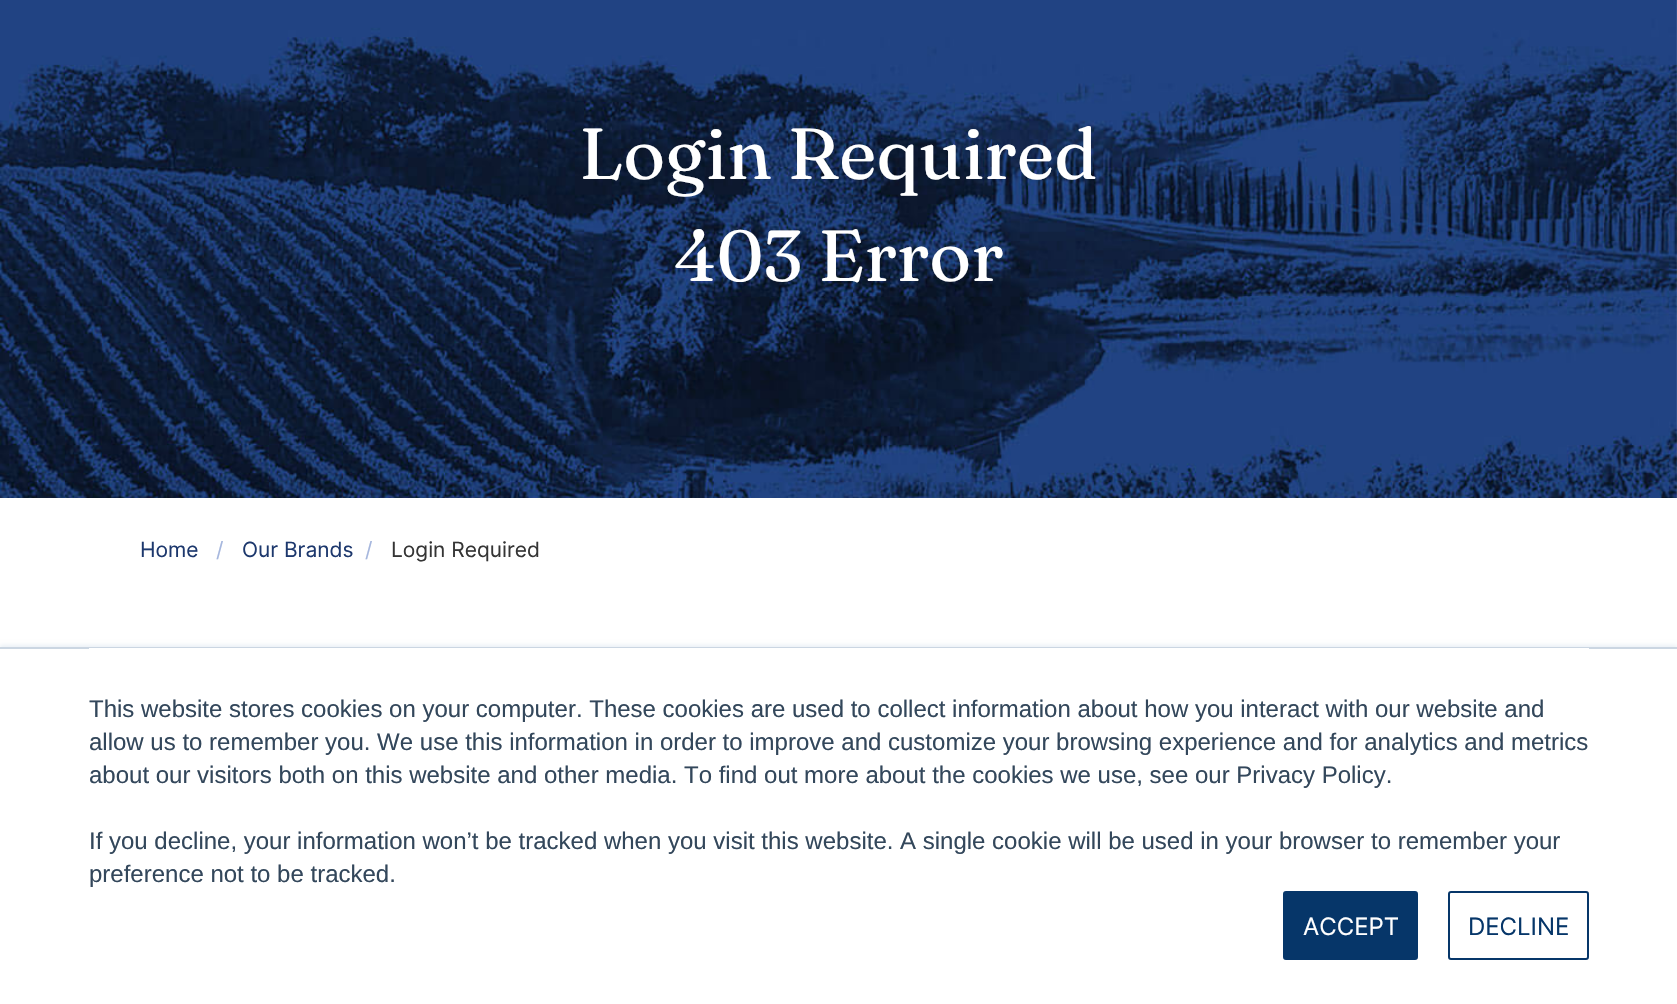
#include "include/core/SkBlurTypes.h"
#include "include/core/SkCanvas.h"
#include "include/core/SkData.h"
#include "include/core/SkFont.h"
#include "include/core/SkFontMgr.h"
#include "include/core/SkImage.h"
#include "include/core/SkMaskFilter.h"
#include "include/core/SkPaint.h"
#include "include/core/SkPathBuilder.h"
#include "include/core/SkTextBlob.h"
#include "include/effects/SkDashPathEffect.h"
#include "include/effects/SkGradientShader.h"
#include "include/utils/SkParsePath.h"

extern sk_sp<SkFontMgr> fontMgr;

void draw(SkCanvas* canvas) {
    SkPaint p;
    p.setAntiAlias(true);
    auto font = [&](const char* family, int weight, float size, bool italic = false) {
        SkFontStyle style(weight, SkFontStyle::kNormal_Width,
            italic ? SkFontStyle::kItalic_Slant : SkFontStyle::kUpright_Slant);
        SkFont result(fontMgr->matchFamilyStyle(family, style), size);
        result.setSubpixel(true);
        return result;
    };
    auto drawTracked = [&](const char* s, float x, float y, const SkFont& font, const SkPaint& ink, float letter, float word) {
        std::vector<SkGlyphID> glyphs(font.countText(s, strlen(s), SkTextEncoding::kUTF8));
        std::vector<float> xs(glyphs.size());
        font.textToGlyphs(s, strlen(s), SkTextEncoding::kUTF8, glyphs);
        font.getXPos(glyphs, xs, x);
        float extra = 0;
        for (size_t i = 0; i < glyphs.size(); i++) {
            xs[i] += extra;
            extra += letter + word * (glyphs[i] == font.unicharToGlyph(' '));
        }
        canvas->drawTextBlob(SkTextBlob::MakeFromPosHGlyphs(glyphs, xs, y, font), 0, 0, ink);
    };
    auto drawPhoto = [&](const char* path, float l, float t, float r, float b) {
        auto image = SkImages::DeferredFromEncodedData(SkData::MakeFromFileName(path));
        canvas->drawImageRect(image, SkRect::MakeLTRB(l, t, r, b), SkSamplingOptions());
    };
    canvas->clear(0xFFFFFFFF);
    drawPhoto("media/1.png", 0, 0, 1677, 498);
    auto font1 = font("Fraunces", 400, 72);
    p.setColor(0xFFFFFFFF);
    canvas->drawString("Login Required", 579, 179, font1, p);
    drawTracked("403 Error", 674, 281, font1, p, -0.1f, 0);
    auto font2 = font("Inter", 400, 21);
    p.setColor(0xFF1D386D);
    canvas->drawString("Home", 140, 557, font2, p);
    p.setColor(0xFFA6B7DE);
    canvas->drawString("/", 216, 557, font2, p);
    p.setColor(0xFF1D386D);
    canvas->drawString("Our Brands", 242, 557, font2, p);
    p.setColor(0xFFA6B7DE);
    canvas->drawString("/", 365, 557, font2, p);
    p.setColor(0xFF353535);
    canvas->drawString("Login Required", 391, 557, font2, p);
    p.setColor(0xFFEAF0F6);
    p.setMaskFilter(SkMaskFilter::MakeBlur(kNormal_SkBlurStyle, 2));
    canvas->drawRect(SkRect::MakeLTRB(0, 645, 1677, 1004), p);
    p.setMaskFilter(nullptr);
    {
        const struct { float l, t, r, b; SkColor color; } items[] = {
            {0, 649, 1677, 1004, 0xFFFFFFFF},
            {0, 647, 1677, 649, 0xFFCBD6E2},
            {89, 648, 1589, 649, 0xFFFFFFFF},
        };
        for (auto [l, t, r, b, color] : items) {
            p.setColor(color);
            canvas->drawRect(SkRect::MakeLTRB(l, t, r, b), p);
        }
    }
    auto font3 = font("Liberation Sans", 400, 24);
    p.setColor(0xFF33475B);
    {
        const struct { const char* s; float x, y; } items[] = {
            {"This website stores cookies on your computer. These cookies are used to collect information about how you interact with our website and", 89, 717},
            {"allow us to remember you. We use this information in order to improve and customize your browsing experience and for analytics and metrics", 89, 750},
            {"about our visitors both on this website and other media. To find out more about the cookies we use, see our Privacy Policy.", 89, 783},
            {"If you decline, your information won’t be tracked when you visit this website. A single cookie will be used in your browser to remember your", 89, 849},
            {"preference not to be tracked.", 89, 882},
        };
        for (auto [s, x, y] : items) {
            canvas->drawString(s, x, y, font3, p);
        }
    }
    p.setColor(0xFF063669);
    canvas->drawRoundRect(SkRect::MakeLTRB(1284, 892, 1417, 959), 2, 2, p);
    p.setStyle(SkPaint::kStroke_Style);
    p.setStrokeWidth(2);
    canvas->drawRoundRect(SkRect::MakeLTRB(1284, 892, 1417, 959), 2, 2, p);
    auto font4 = font("Inter", 400, 24);
    p.setStyle(SkPaint::kFill_Style);
    p.setColor(0xFFFFFFFF);
    canvas->drawString("ACCEPT", 1303, 935, font4, p);
    p.setStyle(SkPaint::kStroke_Style);
    p.setColor(0xFF063669);
    canvas->drawRoundRect(SkRect::MakeLTRB(1449, 892, 1588, 959), 2, 2, p);
    p.setStyle(SkPaint::kFill_Style);
    canvas->drawString("DECLINE", 1468, 935, font4, p);
}
